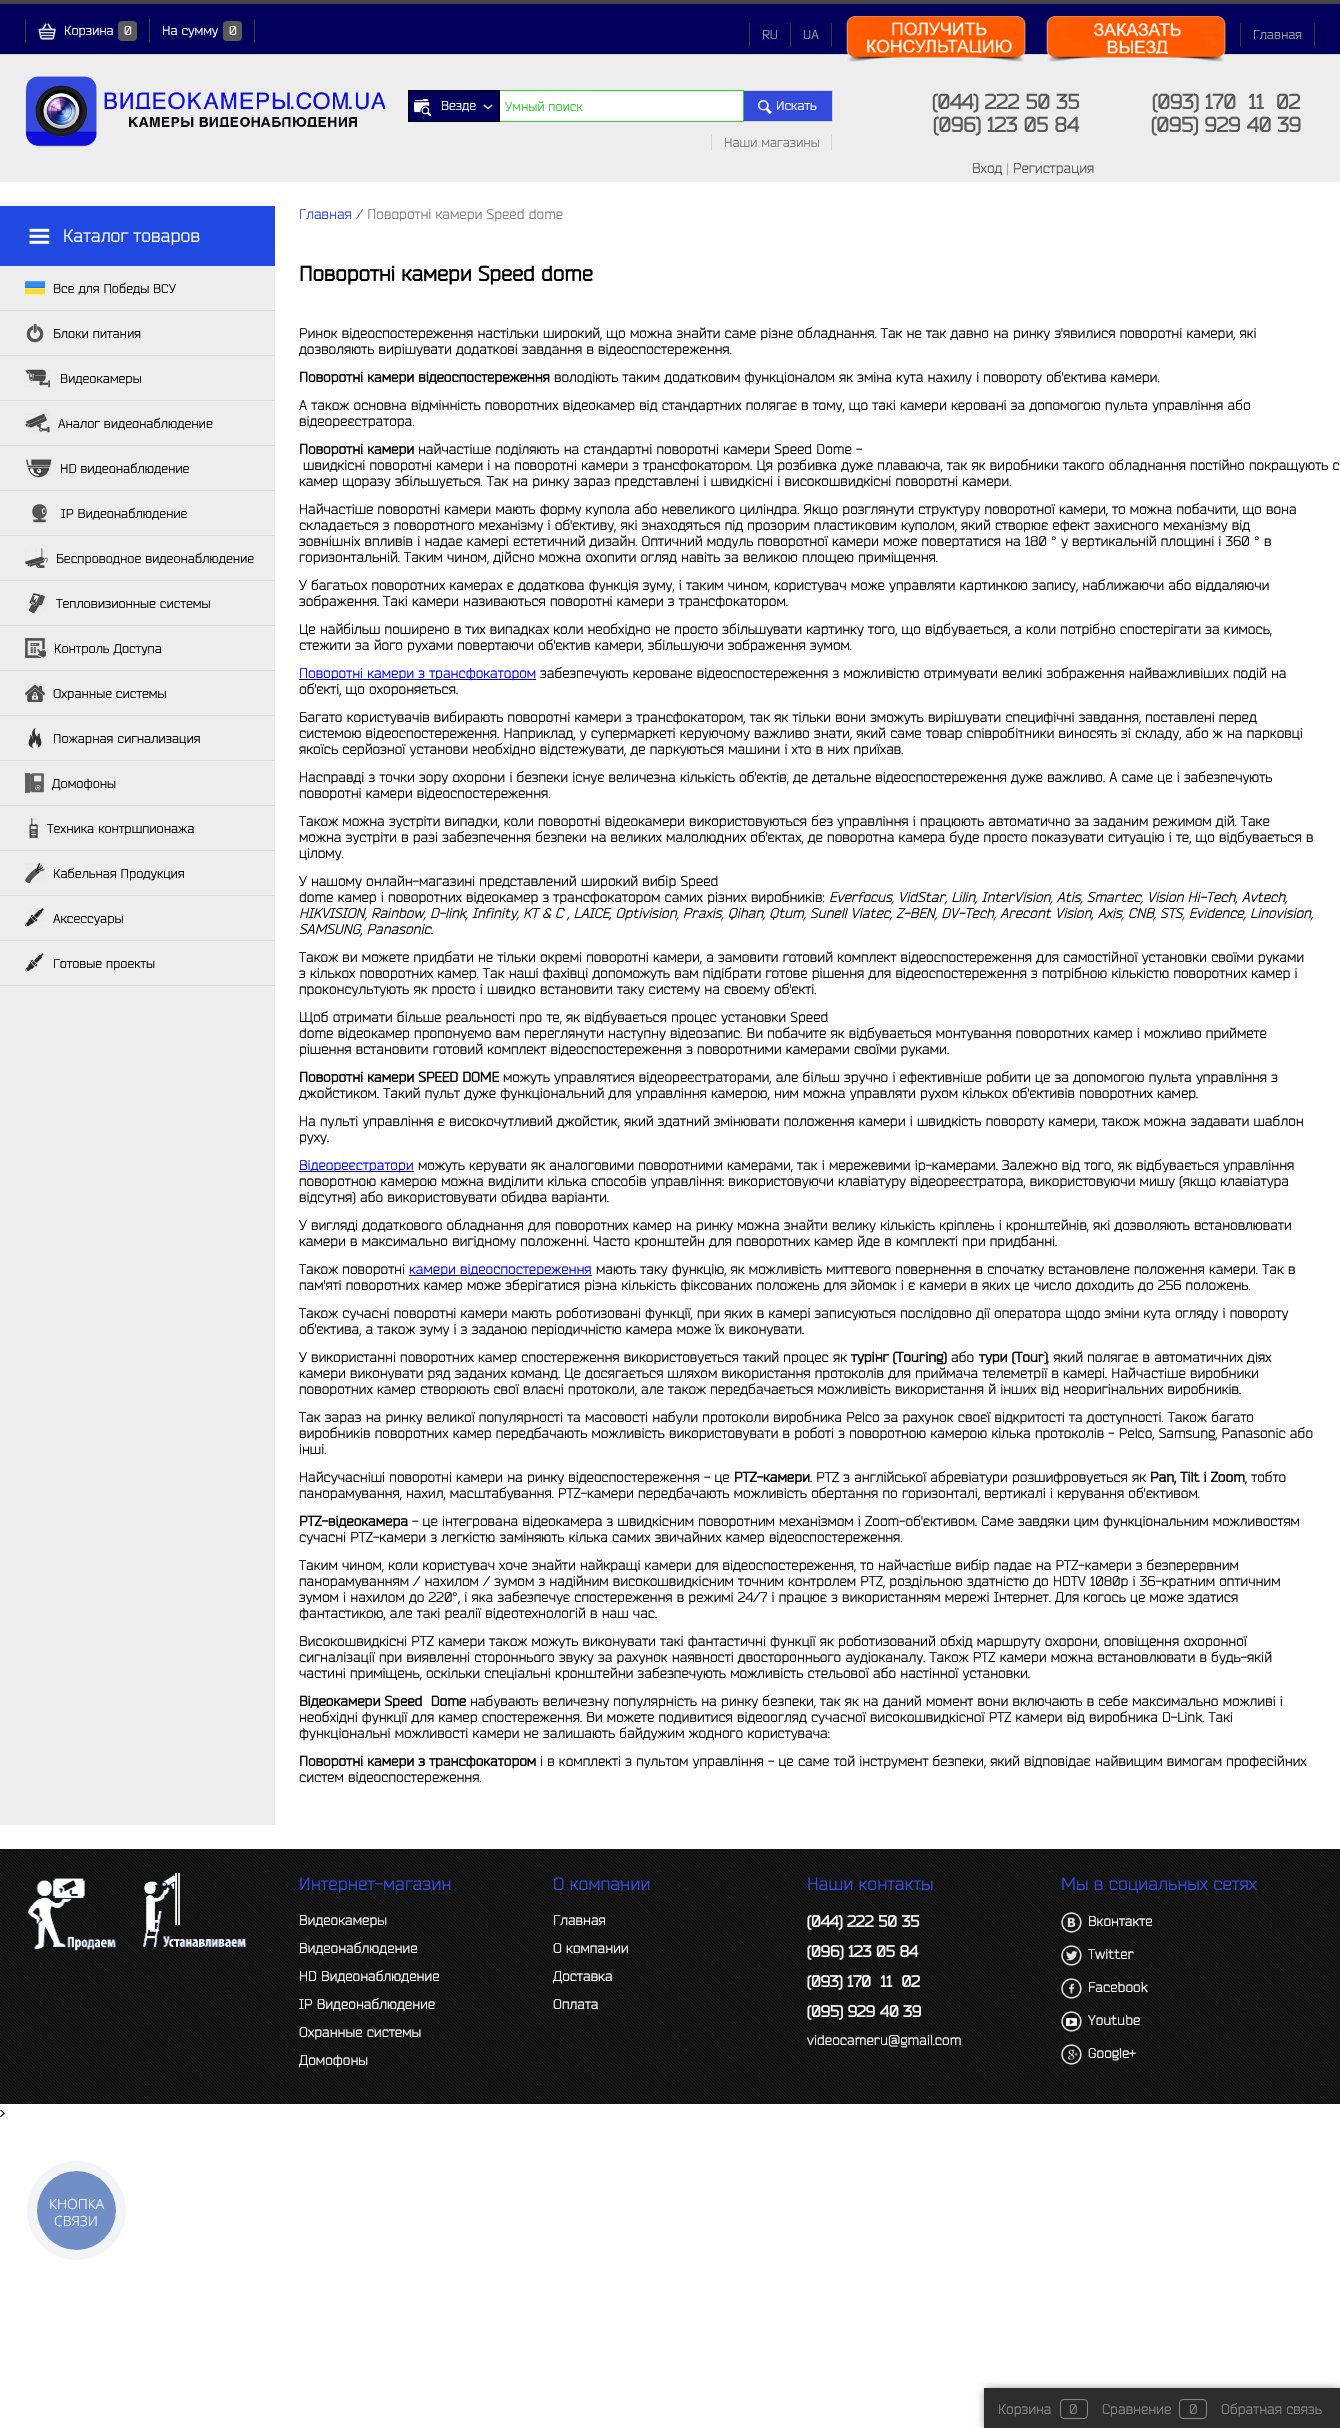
#include "include/core/SkBlurTypes.h"
#include "include/core/SkCanvas.h"
#include "include/core/SkData.h"
#include "include/core/SkFont.h"
#include "include/core/SkFontMgr.h"
#include "include/core/SkImage.h"
#include "include/core/SkMaskFilter.h"
#include "include/core/SkPaint.h"
#include "include/core/SkPathBuilder.h"
#include "include/core/SkTextBlob.h"
#include "include/effects/SkDashPathEffect.h"
#include "include/effects/SkGradientShader.h"
#include "include/utils/SkParsePath.h"

extern sk_sp<SkFontMgr> fontMgr;

void draw(SkCanvas* canvas) {
    SkPaint p;
    p.setAntiAlias(true);
    auto font = [&](const char* family, int weight, float size, bool italic = false) {
        SkFontStyle style(weight, SkFontStyle::kNormal_Width,
            italic ? SkFontStyle::kItalic_Slant : SkFontStyle::kUpright_Slant);
        SkFont result(fontMgr->matchFamilyStyle(family, style), size);
        result.setSubpixel(true);
        return result;
    };
    auto drawPhoto = [&](const char* path, float l, float t, float r, float b) {
        auto image = SkImages::DeferredFromEncodedData(SkData::MakeFromFileName(path));
        canvas->drawImageRect(image, SkRect::MakeLTRB(l, t, r, b), SkSamplingOptions());
    };
    canvas->clear(0xFFFFFFFF);
    {
        const struct { float l, t, r, b; SkColor color; } items[] = {
            {0, 54, 1340, 55, 0xFFD5D5D5},
            {0, 4, 1340, 54, 0xFF00005C},
            {0, 0, 1340, 4, 0xFF444444},
            {149, 19, 150, 43, 0xFF3C3C3C},
            {25, 19, 26, 43, 0xFF3C3C3C},
        };
        for (auto [l, t, r, b, color] : items) {
            p.setColor(color);
            canvas->drawRect(SkRect::MakeLTRB(l, t, r, b), p);
        }
    }
    drawPhoto("media/1.png", 38, 23, 56, 40);
    auto font1 = font("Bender", 400, 13);
    p.setColor(0xFFFFFFFF);
    canvas->drawString("Корзина", 64, 35, font1, p);
    p.setColor(0xFF5A5A5A);
    canvas->drawRoundRect(SkRect::MakeLTRB(118, 21, 137, 41), 4, 4, p);
    p.setColor(0xFFFFFFFF);
    canvas->drawString("0", 124, 35, font1, p);
    p.setColor(0xFF3C3C3C);
    canvas->drawRect(SkRect::MakeLTRB(254, 19, 255, 43), p);
    p.setColor(0xFFFFFFFF);
    canvas->drawString("На сумму", 162, 35, font1, p);
    p.setColor(0xFF5A5A5A);
    canvas->drawRoundRect(SkRect::MakeLTRB(223, 21, 242, 41), 4, 4, p);
    p.setColor(0xFFFFFFFF);
    canvas->drawString("0", 229, 35, font1, p);
    p.setColor(0xFF3C3C3C);
    canvas->drawRect(SkRect::MakeLTRB(749, 23, 750, 47), p);
    p.setColor(0xFF9E9E9E);
    canvas->drawString("RU", 762, 39, font1, p);
    p.setColor(0xFF3C3C3C);
    canvas->drawRect(SkRect::MakeLTRB(831, 23, 832, 47), p);
    canvas->drawRect(SkRect::MakeLTRB(790, 23, 791, 47), p);
    p.setColor(0xFF9E9E9E);
    canvas->drawString("UA", 803, 39, font1, p);
    p.setColor(0xFFEDEDED);
    canvas->drawRect(SkRect::MakeLTRB(0, 55, 1340, 182), p);
    drawPhoto("media/2.png", 845, 16, 1026, 62);
    drawPhoto("media/3.png", 1045, 16, 1226, 62);
    p.setColor(0xFF3C3C3C);
    canvas->drawRect(SkRect::MakeLTRB(1314, 23, 1315, 47), p);
    canvas->drawRect(SkRect::MakeLTRB(1240, 23, 1241, 47), p);
    p.setColor(0xFF9E9E9E);
    canvas->drawString("Главная", 1253, 39, font1, p);
    drawPhoto("media/4.png", 25, 76, 385, 147);
    {
        const struct { float l, t, r, b; SkColor color; } items[] = {
            {500, 91, 743, 121, 0xFFFFFFFF},
            {742, 90, 833, 91, 0xFFD3D3D3},
            {832, 90, 833, 122, 0xFFD3D3D3},
            {742, 121, 833, 122, 0xFFD3D3D3},
        };
        for (auto [l, t, r, b, color] : items) {
            p.setColor(color);
            canvas->drawRect(SkRect::MakeLTRB(l, t, r, b), p);
        }
    }
    p.setStyle(SkPaint::kStroke_Style);
    p.setStrokeWidth(1);
    p.setColor(0xFF32CD32);
    canvas->drawRect(SkRect::MakeLTRB(498.5f, 90.5f, 743.5f, 121.5f), p);
    p.setStyle(SkPaint::kFill_Style);
    p.setColor(0xFF00005C);
    canvas->drawRect(SkRect::MakeLTRB(408.5f, 90.5f, 499.5f, 121.5f), p);
    p.setStyle(SkPaint::kStroke_Style);
    p.setColor(0xFF000000);
    canvas->drawRect(SkRect::MakeLTRB(408.5f, 90.5f, 499.5f, 121.5f), p);
    drawPhoto("media/5.png", 414, 99, 431, 116);
    p.setStyle(SkPaint::kFill_Style);
    p.setColor(0xFFFFFFFF);
    canvas->drawString("Везде", 441, 110, font1, p);
    drawPhoto("media/6.png", 483, 104, 493, 110);
    p.setColor(0xFF32CD32);
    canvas->drawString("Умный поиск", 505, 111, font1, p);
    p.setColor(0xFF334ADD);
    canvas->drawRect(SkRect::MakeLTRB(744, 91, 832, 121), p);
    drawPhoto("media/7.png", 758, 100, 772, 114);
    p.setColor(0xFFFFFFFF);
    canvas->drawString("Искать", 776, 110, font1, p);
    p.setColor(0xFFD3D3D3);
    canvas->drawRect(SkRect::MakeLTRB(831, 134, 832, 150), p);
    canvas->drawRect(SkRect::MakeLTRB(711, 134, 712, 150), p);
    p.setColor(0xFF787878);
    canvas->drawString("Наши магазины", 724, 147, font1, p);
    auto font2 = font("Bender", 700, 21);
    p.setColor(0xFF595959);
    {
        const struct { const char* s; float x, y; } items[] = {
            {"(044) 222 50 35", 932, 109},
            {"(096) 123 05 84", 933, 132},
            {"(093) 170  11  02", 1152, 109},
            {"(095) 929 40 39", 1151, 132},
        };
        for (auto [s, x, y] : items) {
            canvas->drawString(s, x, y, font2, p);
        }
    }
    auto font3 = font("Bender", 400, 14);
    canvas->drawString("Вход", 972, 173, font3, p);
    p.setColor(0xFF9E9E9E);
    canvas->drawString("|", 1006, 173, font3, p);
    p.setColor(0xFF595959);
    canvas->drawString("Регистрация", 1013, 173, font3, p);
    p.setColor(0xFFEDEDED);
    canvas->drawRect(SkRect::MakeLTRB(0, 266, 275, 1825), p);
    p.setColor(0xFF2049E2);
    canvas->drawRect(SkRect::MakeLTRB(0, 206, 275, 266), p);
    drawPhoto("media/8.png", 29, 228, 50, 244);
    auto font4 = font("Bender", 400, 18);
    p.setColor(0xFFFFFFFF);
    canvas->drawString("Каталог товаров", 63, 242, font4, p);
    p.setColor(0xFFDBDBDB);
    canvas->drawRect(SkRect::MakeLTRB(0, 310, 275, 311), p);
    drawPhoto("media/9.png", 25, 281, 45, 295);
    p.setColor(0xFF000000);
    canvas->drawString("Все для Победы ВСУ", 53, 293, font1, p);
    p.setColor(0xFFDBDBDB);
    canvas->drawRect(SkRect::MakeLTRB(0, 355, 275, 356), p);
    drawPhoto("media/10.png", 26, 323, 44, 343);
    p.setColor(0xFF000000);
    canvas->drawString("Блоки питания", 53, 338, font1, p);
    p.setColor(0xFFDBDBDB);
    canvas->drawRect(SkRect::MakeLTRB(0, 400, 275, 401), p);
    drawPhoto("media/11.png", 25, 369, 50, 388);
    p.setColor(0xFF000000);
    canvas->drawString("Видеокамеры", 60, 383, font1, p);
    p.setColor(0xFFDBDBDB);
    canvas->drawRect(SkRect::MakeLTRB(0, 445, 275, 446), p);
    drawPhoto("media/12.png", 25, 413, 50, 433);
    p.setColor(0xFF000000);
    canvas->drawString("Аналог видеонаблюдение", 58, 428, font1, p);
    p.setColor(0xFFDBDBDB);
    canvas->drawRect(SkRect::MakeLTRB(0, 490, 275, 491), p);
    drawPhoto("media/13.png", 26, 459, 52, 478);
    p.setColor(0xFF000000);
    canvas->drawString("HD видеонаблюдение", 60, 473, font1, p);
    p.setColor(0xFFDBDBDB);
    canvas->drawRect(SkRect::MakeLTRB(0, 535, 275, 536), p);
    drawPhoto("media/14.png", 32, 504, 47, 523);
    p.setColor(0xFF000000);
    canvas->drawString("IP Видеонаблюдение", 61, 518, font1, p);
    p.setColor(0xFFDBDBDB);
    canvas->drawRect(SkRect::MakeLTRB(0, 580, 275, 581), p);
    drawPhoto("media/15.png", 25, 548, 48, 568);
    p.setColor(0xFF000000);
    canvas->drawString("Беспроводное видеонаблюдение", 56, 563, font1, p);
    p.setColor(0xFFDBDBDB);
    canvas->drawRect(SkRect::MakeLTRB(0, 625, 275, 626), p);
    drawPhoto("media/16.png", 28, 593, 45, 613);
    p.setColor(0xFF000000);
    canvas->drawString("Тепловизионные системы", 56, 608, font1, p);
    p.setColor(0xFFDBDBDB);
    canvas->drawRect(SkRect::MakeLTRB(0, 670, 275, 671), p);
    drawPhoto("media/17.png", 25, 638, 46, 658);
    p.setColor(0xFF000000);
    canvas->drawString("Контроль Доступа", 54, 653, font1, p);
    p.setColor(0xFFDBDBDB);
    canvas->drawRect(SkRect::MakeLTRB(0, 715, 275, 716), p);
    drawPhoto("media/18.png", 25, 683, 45, 703);
    p.setColor(0xFF000000);
    canvas->drawString("Охранные системы", 53, 698, font1, p);
    p.setColor(0xFFDBDBDB);
    canvas->drawRect(SkRect::MakeLTRB(0, 760, 275, 761), p);
    drawPhoto("media/19.png", 28, 728, 42, 748);
    p.setColor(0xFF000000);
    canvas->drawString("Пожарная сигнализация", 53, 743, font1, p);
    p.setColor(0xFFDBDBDB);
    canvas->drawRect(SkRect::MakeLTRB(0, 805, 275, 806), p);
    drawPhoto("media/20.png", 25, 773, 44, 793);
    p.setColor(0xFF000000);
    canvas->drawString("Домофоны", 52, 788, font1, p);
    p.setColor(0xFFDBDBDB);
    canvas->drawRect(SkRect::MakeLTRB(0, 850, 275, 851), p);
    drawPhoto("media/21.png", 29, 818, 38, 838);
    p.setColor(0xFF000000);
    canvas->drawString("Техника контршпионажа", 47, 833, font1, p);
    p.setColor(0xFFDBDBDB);
    canvas->drawRect(SkRect::MakeLTRB(0, 895, 275, 896), p);
    drawPhoto("media/22.png", 25, 863, 45, 883);
    p.setColor(0xFF000000);
    canvas->drawString("Кабельная Продукция", 53, 878, font1, p);
    p.setColor(0xFFDBDBDB);
    canvas->drawRect(SkRect::MakeLTRB(0, 940, 275, 941), p);
    drawPhoto("media/23.png", 25, 908, 44, 927);
    p.setColor(0xFF000000);
    canvas->drawString("Аксессуары", 53, 923, font1, p);
    p.setColor(0xFFDBDBDB);
    canvas->drawRect(SkRect::MakeLTRB(0, 985, 275, 986), p);
    drawPhoto("media/24.png", 25, 953, 44, 972);
    p.setColor(0xFF000000);
    canvas->drawString("Готовые проекты", 53, 968, font1, p);
    p.setColor(0xFF334ADD);
    canvas->drawString("Главная", 299, 219, font3, p);
    p.setColor(0xFF7F7F7F);
    canvas->drawString("/ Поворотні камери Speed dome", 356, 219, font3, p);
    p.setColor(0xFF000000);
    canvas->drawString("Поворотні камери Speed dome", 299, 281, font2, p);
    canvas->drawString("Ринок відеоспостереження настільки широкий, що можна знайти саме різне обладнання. Так не так давно на ринку з'явилися поворотні камери, які", 299, 338, font3, p);
    canvas->drawString("дозволяють вирішувати додаткові завдання в відеоспостереження.", 299, 354, font3, p);
    auto font5 = font("Bender", 700, 14);
    canvas->drawString("Поворотні камери відеоспостереження", 299, 382, font5, p);
    {
        const struct { const char* s; float x, y; } items[] = {
            {"володіють таким додатковим функціоналом як зміна кута нахилу і повороту об'єктива камери.", 554, 382},
            {"А також основна відмінність поворотних відеокамер від стандартних полягає в тому, що такі камери керовані за допомогою пульта управління або", 299, 410},
            {"відеореєстратора.", 299, 426},
        };
        for (auto [s, x, y] : items) {
            canvas->drawString(s, x, y, font3, p);
        }
    }
    canvas->drawString("Поворотні камери", 299, 454, font5, p);
    {
        const struct { const char* s; float x, y; } items[] = {
            {"найчастіше поділяють на стандартні поворотні камери Speed Dome -", 418, 454},
            {"швидкісні поворотні камери і на поворотні камери з трансфокатором. Ця розбивка дуже плаваюча, так як виробники такого обладнання постійно покращують с", 303, 470},
            {"камер щоразу збільшується. Так на ринку зараз представлені і швидкісні і високошвидкісні поворотні камери.", 299, 486},
            {"Найчастіше поворотні камери мають форму купола або невеликого циліндра. Якщо розглянути структуру поворотної камери, то можна побачити, що вона", 299, 514},
            {"складається з поворотного механізму і об'єктиву, які знаходяться під прозорим пластиковим куполом, який створює ефект захисного механізму від", 299, 530},
            {"зовнішніх впливів і надає камері естетичний дизайн. Оптичний модуль поворотної камери може повертатися на 180", 299, 546},
        };
        for (auto [s, x, y] : items) {
            canvas->drawString(s, x, y, font3, p);
        }
    }
    auto font6 = font("Liberation Sans", 400, 14);
    canvas->drawString("°", 1051, 546, font6, p);
    canvas->drawString("у вертикальній площині і 360", 1061, 546, font3, p);
    canvas->drawString("°", 1254, 546, font6, p);
    {
        const struct { const char* s; float x, y; } items[] = {
            {"в", 1264, 546},
            {"горизонтальній. Таким чином, дійсно можна охопити огляд навіть за великою площею приміщення.", 299, 562},
            {"У багатьох поворотних камерах є додаткова функція зуму, і таким чином, користувач може управляти картинкою запису, наближаючи або віддаляючи", 299, 590},
            {"зображення. Такі камери називаються поворотні камери з трансфокатором.", 299, 606},
            {"Це найбільш поширено в тих випадках коли необхідно не просто збільшувати картинку того, що відбувається, а коли потрібно спостерігати за кимось,", 299, 634},
            {"стежити за його рухами повертаючи об'єктив камери, збільшуючи зображення зумом.", 299, 650},
        };
        for (auto [s, x, y] : items) {
            canvas->drawString(s, x, y, font3, p);
        }
    }
    p.setColor(0xFF0000EE);
    canvas->drawRect(SkRect::MakeLTRB(299, 679, 536, 680), p);
    p.setColor(0xFF0000FF);
    canvas->drawString("Поворотні камери з трансфокатором", 299, 678, font3, p);
    p.setColor(0xFF000000);
    {
        const struct { const char* s; float x, y; } items[] = {
            {"забезпечують кероване відеоспостереження з можливістю отримувати великі зображення найважливіших подій на", 540, 678},
            {"об'єкті, що охороняється.", 299, 694},
            {"Багато користувачів вибирають поворотні камери з трансфокатором, так як тільки вони зможуть вирішувати специфічні завдання, поставлені перед", 299, 722},
            {"системою відеоспостереження. Наприклад, у супермаркеті керуючому важливо знати, який саме товар співробітники виносять зі складу, або ж на парковці", 299, 738},
            {"якоїсь серйозної установи необхідно відстежувати, де паркуються машини і хто в них приїхав.", 299, 754},
            {"Насправді з точки зору охорони і безпеки існує величезна кількість об'єктів, де детальне відеоспостереження дуже важливо. А саме це і забезпечують", 299, 782},
            {"поворотні камери відеоспостереження.", 299, 798},
            {"Також можна зустріти випадки, коли поворотні відеокамери використовуються без управління і працюють автоматично за заданим режимом дій. Таке", 299, 826},
            {"можна зустріти в разі забезпечення безпеки на великих малолюдних об'єктах, де поворотна камера буде просто показувати ситуацію і те, що відбувається в", 299, 842},
            {"цілому.", 299, 858},
            {"У нашому онлайн-магазині представлений широкий вибір Speed", 299, 886},
            {"dome камер і поворотних відеокамер з трансфокатором самих різних виробників:", 299, 902},
        };
        for (auto [s, x, y] : items) {
            canvas->drawString(s, x, y, font3, p);
        }
    }
    auto font7 = font("Bender", 400, 14, true);
    {
        const struct { const char* s; float x, y; } items[] = {
            {"Everfocus, VidStar, Lilin, InterVision, Atis, Smartec, Vision Hi-Tech, Аvtech,", 829, 902},
            {"HIKVISION, Rainbow, D-link, Infinity, KT & C , LAICE, Optivision, Praxis, Qihan, Qtum, Sunell Viatec, Z-BEN, DV-Tech, Arecont Vision, Axis, CNB, STS, Evidence, Linovision,", 299, 918},
            {"SAMSUNG, Panasonic.", 299, 934},
        };
        for (auto [s, x, y] : items) {
            canvas->drawString(s, x, y, font7, p);
        }
    }
    {
        const struct { const char* s; float x, y; } items[] = {
            {"Також ви можете придбати не тільки окремі поворотні камери, а замовити готовий комплект відеоспостереження для самостійної установки своїми руками", 299, 962},
            {"з кількох поворотних камер. Так наші фахівці допоможуть вам підібрати готове рішення для відеоспостереження з потрібною кількістю поворотних камер і", 299, 978},
            {"проконсультують як просто і швидко встановити таку систему на своєму об'єкті.", 299, 994},
            {"Щоб отримати більше реальності про те, як відбувається процес установки Speed", 299, 1022},
            {"dome відеокамер пропонуємо вам переглянути наступну відеозапис. Ви побачите як відбувається монтування поворотних камер і можливо приймете", 299, 1038},
            {"рішення встановити готовий комплект відеоспостереження з поворотними камерами своїми руками.", 299, 1054},
        };
        for (auto [s, x, y] : items) {
            canvas->drawString(s, x, y, font3, p);
        }
    }
    canvas->drawString("Поворотні камери SPEED DOME", 299, 1082, font5, p);
    {
        const struct { const char* s; float x, y; } items[] = {
            {"можуть управлятися відеореєстраторами, але більш зручно і ефективніше робити це за допомогою пульта управління з", 503, 1082},
            {"джойстиком. Такий пульт дуже функціональний для управління камерою, ним можна управляти рухом кількох об'єктивів поворотних камер.", 299, 1098},
            {"На пульті управління є високочутливий джойстик, який здатний змінювати положення камери і швидкість повороту камери, також можна задавати шаблон", 299, 1126},
            {"руху.", 299, 1142},
        };
        for (auto [s, x, y] : items) {
            canvas->drawString(s, x, y, font3, p);
        }
    }
    p.setColor(0xFF0000EE);
    canvas->drawRect(SkRect::MakeLTRB(299, 1171, 414, 1172), p);
    p.setColor(0xFF0000FF);
    canvas->drawString("Відеореєстратори", 299, 1170, font3, p);
    p.setColor(0xFF000000);
    {
        const struct { const char* s; float x, y; } items[] = {
            {"можуть керувати як аналоговими поворотними камерами, так і мережевими ip-камерами. Залежно від того, як відбувається управління", 418, 1170},
            {"поворотною камерою можна виділити кілька способів управління: використовуючи клавіатуру відеореєстратора, використовуючи мишу (якщо клавіатура", 299, 1186},
            {"відсутня) або використовувати обидва варіанти.", 299, 1202},
            {"У вигляді додаткового обладнання для поворотних камер на ринку можна знайти велику кількість кріплень і кронштейнів, які дозволяють встановлювати", 299, 1230},
            {"камери в максимально вигідному положенні. Часто кронштейн для поворотних камер йде в комплекті при придбанні.", 299, 1246},
            {"Також поворотні", 299, 1274},
        };
        for (auto [s, x, y] : items) {
            canvas->drawString(s, x, y, font3, p);
        }
    }
    p.setColor(0xFF0000EE);
    canvas->drawRect(SkRect::MakeLTRB(409, 1275, 592, 1276), p);
    p.setColor(0xFF0000FF);
    canvas->drawString("камери відеоспостереження", 409, 1274, font3, p);
    p.setColor(0xFF000000);
    {
        const struct { const char* s; float x, y; } items[] = {
            {"мають таку функцію, як можливість миттєвого повернення в спочатку встановлене положення камери. Так в", 596, 1274},
            {"пам'яті поворотних камер може зберігатися різна кількість фіксованих положень для зйомок і є камери в яких це число доходить до 256 положень.", 299, 1290},
            {"Також сучасні поворотні камери мають роботизовані функції, при яких в камері записуються послідовно дії оператора щодо зміни кута огляду і повороту", 299, 1318},
            {"об'єктива, а також зуму і з заданою періодичністю камера може їх виконувати.", 299, 1334},
            {"У використанні поворотних камер спостереження використовується такий процес як", 299, 1362},
        };
        for (auto [s, x, y] : items) {
            canvas->drawString(s, x, y, font3, p);
        }
    }
    canvas->drawString("турінг (Touring)", 851, 1362, font5, p);
    canvas->drawString("або", 951, 1362, font3, p);
    canvas->drawString("тури (Tour)", 979, 1362, font5, p);
    {
        const struct { const char* s; float x, y; } items[] = {
            {", який полягає в автоматичних діях", 1047, 1362},
            {"камери виконувати ряд заданих команд. Це досягається шляхом використання протоколів для приймача телеметрії в камері. Найчастіше виробники", 299, 1378},
            {"поворотних камер створюють свої власні протоколи, але також передбачається можливість використання й інших від неоригінальних виробників.", 299, 1394},
            {"Так зараз на ринку великої популярності та масовості набули протоколи виробника Pelco за рахунок своєї відкритості та доступності. Також багато", 299, 1422},
            {"виробників поворотних камер передбачають можливість використовувати в роботі з поворотною камерою кілька протоколів - Pelco, Samsung, Panasonic або", 299, 1438},
            {"інші.", 299, 1454},
            {"Найсучасніші поворотні камери на ринку відеоспостереження - це", 299, 1482},
        };
        for (auto [s, x, y] : items) {
            canvas->drawString(s, x, y, font3, p);
        }
    }
    canvas->drawString("PTZ-камери", 734, 1482, font5, p);
    canvas->drawString(". PTZ з англійської абревіатури розшифровується як", 810, 1482, font3, p);
    canvas->drawString("Pan, Tilt і Zoom", 1150, 1482, font5, p);
    canvas->drawString(", тобто", 1245, 1482, font3, p);
    canvas->drawString("панорамування, нахил, масштабування. PTZ-камери передбачають можливість обертання по горизонталі, вертикалі і керування об'єктивом.", 299, 1498, font3, p);
    canvas->drawString("PTZ-відеокамера", 299, 1526, font5, p);
    {
        const struct { const char* s; float x, y; } items[] = {
            {"- це інтегрована відеокамера з швидкісним поворотним механізмом і Zoom-об'єктивом. Саме завдяки цим функціональним можливостям", 412, 1526},
            {"сучасні PTZ-камери з легкістю заміняють кілька самих звичайних камер відеоспостереження.", 299, 1542},
            {"Таким чином, коли користувач хоче знайти найкращі камери для відеоспостереження, то найчастіше вибір падає на PTZ-камери з безперервним", 299, 1570},
            {"панорамуванням / нахилом / зумом з надійним високошвидкісним точним контролем PTZ, роздільною здатністю до HDTV 1080p і 36-кратним оптичним", 299, 1586},
            {"зумом і нахилом до 220", 299, 1602},
        };
        for (auto [s, x, y] : items) {
            canvas->drawString(s, x, y, font3, p);
        }
    }
    canvas->drawString("°", 452, 1602, font6, p);
    {
        const struct { const char* s; float x, y; } items[] = {
            {", і яка забезпечує спостереження в режимі 24/7 і працює з використанням мережі Інтернет. Для когось це може здатися", 458, 1602},
            {"фантастикою, але такі реалії відеотехнологій в наш час.", 299, 1618},
            {"Високошвидкісні PTZ камери також можуть виконувати такі фантастичні функції як роботизований обхід маршруту охорони, оповіщення охоронної", 299, 1646},
            {"сигналізації при виявленні стороннього звуку за рахунок наявності двостороннього аудіоканалу. Також PTZ камери можна встановлювати в будь-якій", 299, 1662},
            {"частині приміщень, оскільки спеціальні кронштейни забезпечують можливість стельової або настінної установки.", 299, 1678},
        };
        for (auto [s, x, y] : items) {
            canvas->drawString(s, x, y, font3, p);
        }
    }
    canvas->drawString("Відеокамери Speed  Dome", 299, 1706, font5, p);
    {
        const struct { const char* s; float x, y; } items[] = {
            {"набувають величезну популярність на ринку безпеки, так як на даний момент вони включають в себе максимально можливі і", 470, 1706},
            {"необхідні функції для камер спостереження. Ви можете подивитися відеоогляд сучасної високошвидкісної PTZ камери від виробника D-Link. Такі", 299, 1722},
            {"функціональні можливості камери не залишають байдужим жодного користувача:", 299, 1738},
        };
        for (auto [s, x, y] : items) {
            canvas->drawString(s, x, y, font3, p);
        }
    }
    canvas->drawString("Поворотні камери з трансфокатором", 299, 1766, font5, p);
    canvas->drawString("і в комплекті з пультом управління - це саме той інструмент безпеки, який відповідає найвищим вимогам професійних", 540, 1766, font3, p);
    canvas->drawString("систем відеоспостереження.", 299, 1782, font3, p);
    drawPhoto("media/25.png", 0, 1849, 1340, 2104);
    drawPhoto("media/26.png", 27, 1873, 247, 1951);
    p.setColor(0xFF334ADD);
    canvas->drawString("Интернет-магазин", 299, 1890, font4, p);
    p.setColor(0xFFFFFFFF);
    {
        const struct { const char* s; float x, y; } items[] = {
            {"Видеокамеры", 299, 1925},
            {"Видеонаблюдение", 299, 1953},
            {"HD Видеонаблюдение", 299, 1981},
            {"IP Видеонаблюдение", 299, 2009},
            {"Охранные системы", 299, 2037},
            {"Домофоны", 299, 2065},
        };
        for (auto [s, x, y] : items) {
            canvas->drawString(s, x, y, font3, p);
        }
    }
    p.setColor(0xFF334ADD);
    canvas->drawString("О компании", 553, 1890, font4, p);
    p.setColor(0xFFFFFFFF);
    {
        const struct { const char* s; float x, y; } items[] = {
            {"Главная", 553, 1925},
            {"О компании", 553, 1953},
            {"Доставка", 553, 1981},
            {"Оплата", 553, 2009},
        };
        for (auto [s, x, y] : items) {
            canvas->drawString(s, x, y, font3, p);
        }
    }
    p.setColor(0xFF334ADD);
    canvas->drawString("Наши контакты", 807, 1890, font4, p);
    auto font8 = font("Bender", 700, 16);
    p.setColor(0xFFFFFFFF);
    {
        const struct { const char* s; float x, y; } items[] = {
            {"(044) 222 50 35", 807, 1927},
            {"(096) 123 05 84", 807, 1957},
            {"(093) 170  11  02", 807, 1987},
            {"(095) 929 40 39", 807, 2017},
        };
        for (auto [s, x, y] : items) {
            canvas->drawString(s, x, y, font8, p);
        }
    }
    canvas->drawString("videocameru@gmail.com", 807, 2045, font3, p);
    p.setColor(0xFF334ADD);
    canvas->drawString("Мы в cоциальных сетях", 1061, 1890, font4, p);
    drawPhoto("media/27.png", 1061, 1912, 1082, 1933);
    p.setColor(0xFFFFFFFF);
    canvas->drawString("Вконтакте", 1088, 1926, font3, p);
    drawPhoto("media/28.png", 1061, 1945, 1082, 1966);
    canvas->drawString("Twitter", 1088, 1959, font3, p);
    drawPhoto("media/29.png", 1061, 1978, 1082, 1999);
    canvas->drawString("Facebook", 1088, 1992, font3, p);
    drawPhoto("media/30.png", 1061, 2011, 1082, 2032);
    canvas->drawString("Youtube", 1088, 2025, font3, p);
    drawPhoto("media/31.png", 1061, 2044, 1082, 2065);
    canvas->drawString("Google+", 1088, 2058, font3, p);
    p.setColor(0xFF000000);
    canvas->drawString(">", 0, 2117, font3, p);
    p.setColor(0xFFF2F4F5);
    canvas->drawCircle(76.5f, 2210.5f, 49.5f, p);
    p.setColor(0xFF708FC6);
    canvas->drawCircle(76.5f, 2210.5f, 39.5f, p);
    auto font9 = font("Open Sans", 300, 14);
    p.setColor(0xFFFFFFFF);
    canvas->drawString("КНОПКА", 49, 2209, font9, p);
    canvas->drawString("СВЯЗИ", 54, 2226, font9, p);
    p.setColor(0x80000000);
    p.setMaskFilter(SkMaskFilter::MakeBlur(kNormal_SkBlurStyle, 4));
    canvas->drawRoundRect(SkRect::MakeLTRB(985, 2389, 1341, 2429), 4, 4, p);
    p.setMaskFilter(nullptr);
    p.setColor(0xFF2D2D2D);
    canvas->drawRect(SkRect::MakeLTRB(984, 2388, 1340, 2428), p);
    p.setColor(0xFF292929);
    canvas->drawRect(SkRect::MakeLTRB(984, 2388, 988, 2392), p);
    p.setColor(0xFF888888);
    canvas->drawString("Корзина", 998, 2414, font3, p);
    p.setColor(0xFF292929);
    canvas->drawRect(SkRect::MakeLTRB(1060, 2402, 1088, 2416), p);
    p.setStyle(SkPaint::kStroke_Style);
    p.setColor(0xFF888888);
    canvas->drawRoundRect(SkRect::MakeLTRB(1060.5f, 2399.5f, 1087.5f, 2418.5f), 3.5f, 3.5f, p);
    p.setStyle(SkPaint::kFill_Style);
    canvas->drawString("0", 1069, 2414, font3, p);
    canvas->drawString("Сравнение", 1102, 2414, font3, p);
    p.setColor(0xFF292929);
    canvas->drawRect(SkRect::MakeLTRB(1179, 2402, 1207, 2416), p);
    p.setStyle(SkPaint::kStroke_Style);
    p.setColor(0xFF888888);
    canvas->drawRoundRect(SkRect::MakeLTRB(1179.5f, 2399.5f, 1206.5f, 2418.5f), 3.5f, 3.5f, p);
    p.setStyle(SkPaint::kFill_Style);
    canvas->drawString("0", 1189, 2414, font3, p);
    canvas->drawString("Обратная связь", 1221, 2414, font3, p);
}
